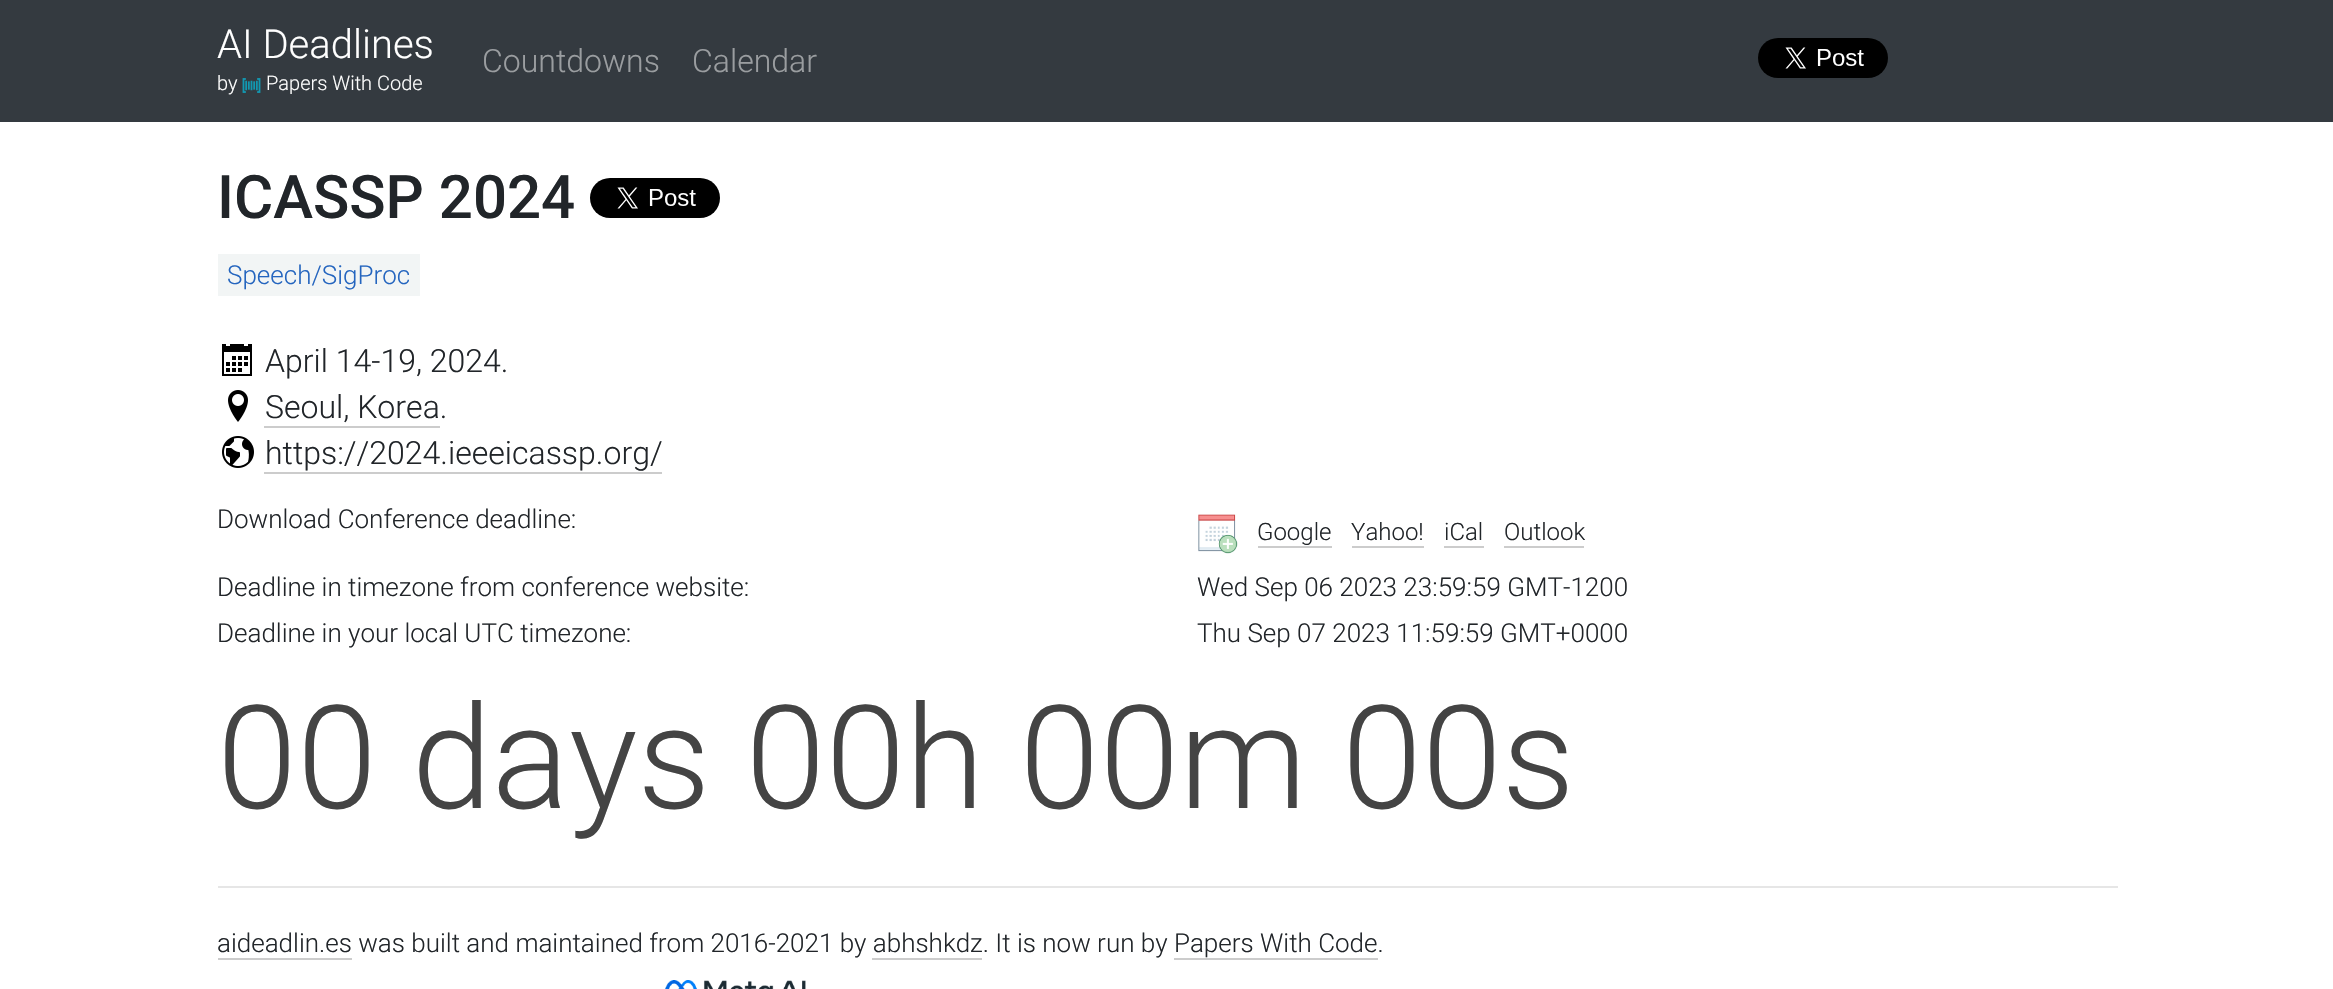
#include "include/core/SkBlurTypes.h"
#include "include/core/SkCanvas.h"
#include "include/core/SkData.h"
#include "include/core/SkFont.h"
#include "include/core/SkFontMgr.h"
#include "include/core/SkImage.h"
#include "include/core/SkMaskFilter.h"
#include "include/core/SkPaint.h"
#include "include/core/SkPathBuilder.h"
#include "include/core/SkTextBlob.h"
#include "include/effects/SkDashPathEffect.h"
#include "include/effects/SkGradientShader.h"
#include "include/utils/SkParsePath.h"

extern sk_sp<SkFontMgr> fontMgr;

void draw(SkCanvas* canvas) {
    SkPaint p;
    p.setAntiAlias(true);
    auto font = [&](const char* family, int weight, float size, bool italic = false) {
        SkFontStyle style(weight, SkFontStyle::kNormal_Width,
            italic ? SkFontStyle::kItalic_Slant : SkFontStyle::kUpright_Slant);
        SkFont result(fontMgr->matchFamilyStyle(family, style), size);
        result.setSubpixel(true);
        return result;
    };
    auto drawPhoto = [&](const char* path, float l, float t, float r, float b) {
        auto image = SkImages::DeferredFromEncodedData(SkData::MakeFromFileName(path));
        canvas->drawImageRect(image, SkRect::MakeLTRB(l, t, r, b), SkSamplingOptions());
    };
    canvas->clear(0xFFFFFFFF);
    p.setColor(0xFF343A40);
    canvas->drawRect(SkRect::MakeLTRB(0, 0, 2333, 122), p);
    auto font1 = font("Roboto", 300, 40);
    p.setColor(0xFFFFFFFF);
    canvas->drawString("AI Deadlines", 217, 58, font1, p);
    auto font2 = font("Roboto", 300, 20);
    canvas->drawString("by", 217, 90, font2, p);
    drawPhoto("media/1.png", 242, 78, 261, 93);
    canvas->drawString("Papers With Code", 266, 90, font2, p);
    auto font3 = font("Roboto", 300, 32);
    p.setColor(0xFF9A9DA0);
    canvas->drawString("Countdowns", 482, 72, font3, p);
    canvas->drawString("Calendar", 692, 72, font3, p);
    drawPhoto("media/2.png", 1758, 38, 1888, 78);
    auto font4 = font("Roboto", 500, 60);
    p.setColor(0xFF212529);
    canvas->drawString("ICASSP 2024", 217, 218, font4, p);
    drawPhoto("media/3.png", 590, 178, 720, 218);
    p.setColor(0xFFF2F5F5);
    canvas->drawRect(SkRect::MakeLTRB(218, 254, 420, 296), p);
    auto font5 = font("Roboto", 300, 26);
    p.setColor(0xFF2465BF);
    canvas->drawString("Speech/SigProc", 227, 284, font5, p);
    drawPhoto("media/4.png", 222, 344, 252, 376);
    p.setColor(0xFF212529);
    canvas->drawString("April 14-19, 2024.", 265, 372, font3, p);
    drawPhoto("media/5.png", 228, 390, 248, 422);
    canvas->drawString("Seoul, Korea.", 265, 418, font3, p);
    p.setColor(0xFFCCCCCC);
    canvas->drawRect(SkRect::MakeLTRB(264, 426, 440, 428), p);
    drawPhoto("media/6.png", 222, 436, 254, 468);
    p.setColor(0xFF212529);
    canvas->drawString("https://2024.ieeeicassp.org/", 265, 464, font3, p);
    p.setColor(0xFFCCCCCC);
    canvas->drawRect(SkRect::MakeLTRB(264, 472, 662, 474), p);
    p.setColor(0xFF212529);
    canvas->drawString("Download Conference deadline:", 217, 528, font5, p);
    drawPhoto("media/7.png", 1198, 514, 1238, 554);
    auto font6 = font("Roboto", 300, 24);
    canvas->drawString("Google", 1257, 540, font6, p);
    p.setColor(0xFFCCCCCC);
    canvas->drawRect(SkRect::MakeLTRB(1258, 546, 1332, 548), p);
    p.setColor(0xFF212529);
    canvas->drawString("Yahoo!", 1351, 540, font6, p);
    p.setColor(0xFFCCCCCC);
    canvas->drawRect(SkRect::MakeLTRB(1352, 546, 1424, 548), p);
    p.setColor(0xFF212529);
    canvas->drawString("iCal", 1444, 540, font6, p);
    p.setColor(0xFFCCCCCC);
    canvas->drawRect(SkRect::MakeLTRB(1444, 546, 1484, 548), p);
    p.setColor(0xFF212529);
    canvas->drawString("Outlook", 1504, 540, font6, p);
    p.setColor(0xFFCCCCCC);
    canvas->drawRect(SkRect::MakeLTRB(1504, 546, 1584, 548), p);
    p.setColor(0xFF212529);
    {
        const struct { const char* s; float x, y; } items[] = {
            {"Deadline in timezone from conference website:", 217, 596},
            {"Wed Sep 06 2023 23:59:59 GMT-1200", 1197, 596},
            {"Deadline in your local UTC timezone:", 217, 642},
            {"Thu Sep 07 2023 11:59:59 GMT+0000", 1197, 642},
        };
        for (auto [s, x, y] : items) {
            canvas->drawString(s, x, y, font5, p);
        }
    }
    auto font7 = font("Roboto", 300, 144);
    p.setColor(0xFF444444);
    canvas->drawString("00 days 00h 00m 00s", 217, 808, font7, p);
    p.setColor(0xFFE6E6E6);
    canvas->drawRect(SkRect::MakeLTRB(218, 886, 2118, 888), p);
    p.setColor(0xFF212529);
    canvas->drawString("aideadlin.es was built and maintained from 2016-2021 by abhshkdz. It is now run by Papers With Code.", 217, 952, font5, p);
    {
        const struct { float l, t, r, b; SkColor color; } items[] = {
            {218, 958, 352, 960, 0xFFCCCCCC},
            {872, 958, 982, 960, 0xFFCCCCCC},
            {1174, 958, 1378, 960, 0xFFCCCCCC},
        };
        for (auto [l, t, r, b, color] : items) {
            p.setColor(color);
            canvas->drawRect(SkRect::MakeLTRB(l, t, r, b), p);
        }
    }
    drawPhoto("media/8.png", 665, 980, 806, 989);
}
